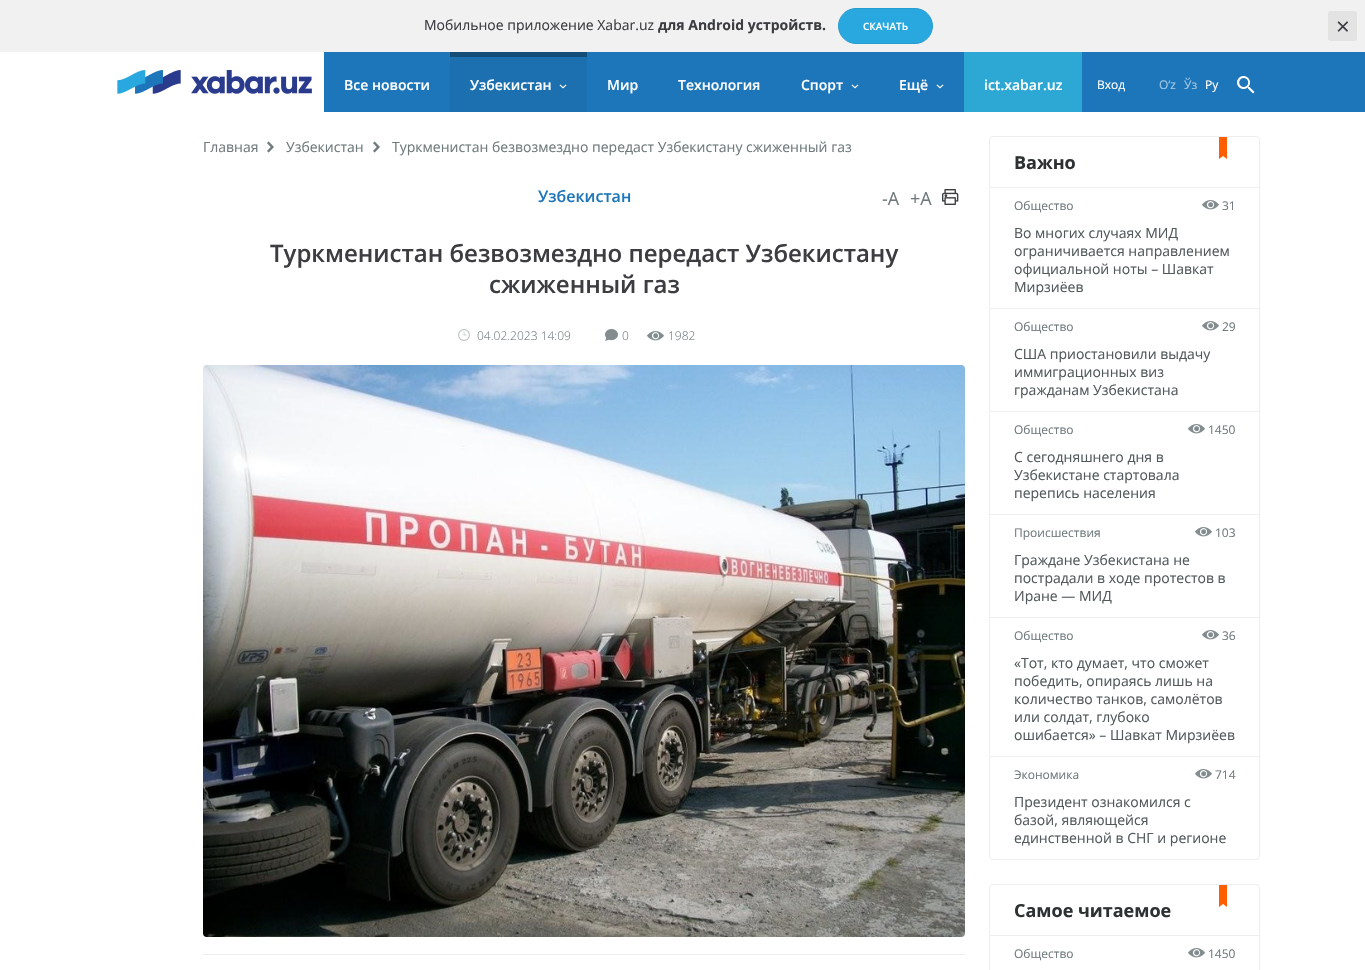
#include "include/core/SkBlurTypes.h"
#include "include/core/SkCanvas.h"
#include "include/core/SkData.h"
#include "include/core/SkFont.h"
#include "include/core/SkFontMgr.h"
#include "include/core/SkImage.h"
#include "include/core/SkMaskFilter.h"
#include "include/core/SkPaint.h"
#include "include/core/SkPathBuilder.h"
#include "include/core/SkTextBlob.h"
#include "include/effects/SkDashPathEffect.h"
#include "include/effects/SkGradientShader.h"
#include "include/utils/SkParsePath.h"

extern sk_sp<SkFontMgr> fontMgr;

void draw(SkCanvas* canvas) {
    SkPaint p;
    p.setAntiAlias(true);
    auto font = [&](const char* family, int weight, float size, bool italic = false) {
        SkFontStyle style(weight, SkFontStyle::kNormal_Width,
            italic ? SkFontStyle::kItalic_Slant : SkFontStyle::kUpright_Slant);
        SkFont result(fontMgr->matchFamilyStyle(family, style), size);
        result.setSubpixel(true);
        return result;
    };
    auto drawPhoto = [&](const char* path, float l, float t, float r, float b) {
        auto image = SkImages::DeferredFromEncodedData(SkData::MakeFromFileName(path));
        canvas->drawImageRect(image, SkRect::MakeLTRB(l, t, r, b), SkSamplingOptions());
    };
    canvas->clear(0xFFFFFFFF);
    p.setColor(0xFFF1F1F1);
    canvas->drawRect(SkRect::MakeLTRB(0, 0, 1365, 52), p);
    auto font1 = font("Open Sans", 400, 14);
    p.setColor(0xFF3B3D40);
    canvas->drawString("Мобильное приложение Xabar.uz", 424, 30, font1, p);
    auto font2 = font("Open Sans", 700, 14);
    canvas->drawString("для Android устройств.", 658, 30, font2, p);
    p.setColor(0xFF28A8DF);
    canvas->drawRoundRect(SkRect::MakeLTRB(838.5f, 8.5f, 932.5f, 43.5f), 17.5f, 17.5f, p);
    p.setStyle(SkPaint::kStroke_Style);
    p.setStrokeWidth(1);
    p.setColor(0xFF259CCF);
    canvas->drawRoundRect(SkRect::MakeLTRB(838.5f, 8.5f, 932.5f, 43.5f), 17.5f, 17.5f, p);
    auto font3 = font("Open Sans", 600, 10);
    p.setStyle(SkPaint::kFill_Style);
    p.setColor(0xFFFFFFFF);
    canvas->drawString("СКАЧАТЬ", 863, 30, font3, p);
    p.setColor(0xFFE3E3E3);
    canvas->drawRoundRect(SkRect::MakeLTRB(1328, 11, 1357, 41), 3, 3, p);
    auto font4 = font("Open Sans", 400, 24);
    p.setColor(0xFF3B3D40);
    canvas->drawString("×", 1336, 35, font4, p);
    p.setColor(0xFF1D76B9);
    canvas->drawRect(SkRect::MakeLTRB(1082, 52, 1365, 112), p);
    drawPhoto("media/1.png", 117, 70, 312, 94);
    canvas->drawRect(SkRect::MakeLTRB(324, 52, 964, 112), p);
    auto font5 = font("Open Sans", 600, 14);
    p.setColor(0xFFFFFFFF);
    canvas->drawString("Все новости", 344, 90, font5, p);
    p.setColor(0xFF1C70B0);
    canvas->drawRect(SkRect::MakeLTRB(450, 57, 587, 112), p);
    p.setColor(0xFF134C77);
    canvas->drawRect(SkRect::MakeLTRB(450, 52, 587, 57), p);
    p.setColor(0xFFFFFFFF);
    canvas->drawString("Узбекистан", 470, 90, font5, p);
    drawPhoto("media/2.png", 559, 84, 567, 89);
    {
        const struct { const char* s; float x, y; } items[] = {
            {"Мир", 607, 90},
            {"Технология", 678, 90},
            {"Спорт", 801, 90},
        };
        for (auto [s, x, y] : items) {
            canvas->drawString(s, x, y, font5, p);
        }
    }
    drawPhoto("media/3.png", 851, 84, 859, 89);
    canvas->drawString("Ещё", 899, 90, font5, p);
    drawPhoto("media/3.png", 936, 84, 944, 89);
    p.setColor(0xFF2DA8D4);
    canvas->drawRect(SkRect::MakeLTRB(964, 52, 1082, 112), p);
    p.setColor(0xFFFFFFFF);
    canvas->drawString("ict.xabar.uz", 984, 90, font5, p);
    auto font6 = font("Open Sans", 400, 12);
    canvas->drawString("Вход", 1097, 89, font6, p);
    p.setColor(0xFFA5C8E3);
    canvas->drawString("O‘z", 1159, 89, font6, p);
    canvas->drawString("Ўз", 1184, 89, font6, p);
    p.setColor(0xFFFFFFFF);
    canvas->drawString("Ру", 1205, 89, font6, p);
    drawPhoto("media/4.png", 1237, 76, 1255, 94);
    p.setColor(0xFF707A7C);
    canvas->drawString("Главная", 203, 152, font1, p);
    drawPhoto("media/5.png", 267, 141, 274, 153);
    canvas->drawString("Узбекистан", 286, 152, font1, p);
    drawPhoto("media/5.png", 373, 141, 380, 153);
    canvas->drawString("Туркменистан безвозмездно передаст Узбекистану сжиженный газ", 392, 152, font1, p);
    auto font7 = font("Open Sans", 600, 16);
    p.setColor(0xFF1D76B9);
    canvas->drawString("Узбекистан", 538, 202, font7, p);
    auto font8 = font("Open Sans", 400, 18);
    p.setColor(0xFF707A7C);
    canvas->drawString("-A", 882, 205, font8, p);
    canvas->drawString("+A", 910, 205, font8, p);
    drawPhoto("media/6.png", 942, 189, 959, 205);
    auto font9 = font("Open Sans", 600, 24);
    p.setColor(0xFF3B3D40);
    canvas->drawString("Туркменистан безвозмездно передаст Узбекистану", 270, 262, font9, p);
    canvas->drawString("сжиженный газ", 489, 293, font9, p);
    drawPhoto("media/7.png", 458, 329, 470, 341);
    auto font10 = font("Open Sans", 300, 12);
    p.setColor(0xFF707A7C);
    canvas->drawString("04.02.2023 14:09", 477, 340, font10, p);
    drawPhoto("media/8.png", 605, 329, 618, 341);
    canvas->drawString("0", 622, 340, font10, p);
    drawPhoto("media/9.png", 647, 331, 664, 341);
    canvas->drawString("1982", 668, 340, font10, p);
    p.setColor(0xFFEEEEEE);
    canvas->drawRect(SkRect::MakeLTRB(203, 954, 965, 955), p);
    drawPhoto("media/10.png", 203, 365, 965, 937);
    p.setStyle(SkPaint::kStroke_Style);
    canvas->drawRoundRect(SkRect::MakeLTRB(989.5f, 136.5f, 1259.5f, 859.5f), 3.5f, 3.5f, p);
    p.setStyle(SkPaint::kFill_Style);
    canvas->drawRect(SkRect::MakeLTRB(990, 187, 1259, 188), p);
    p.setColor(0xFFFF5D00);
    canvas->drawPath(SkPathBuilder().moveTo(1219, 137).lineTo(1219, 159).lineTo(1223, 156).lineTo(1227, 159).lineTo(1227, 137).close().detach(), p);
    auto font11 = font("Open Sans", 700, 18);
    p.setColor(0xFF2D3132);
    canvas->drawString("Важно", 1014, 169, font11, p);
    p.setColor(0xFF707A7C);
    canvas->drawString("Общество", 1014, 210, font6, p);
    drawPhoto("media/9.png", 1202, 200, 1219, 210);
    canvas->drawString("31", 1222, 210, font6, p);
    p.setColor(0xFF52595B);
    {
        const struct { const char* s; float x, y; } items[] = {
            {"Во многих случаях МИД", 1014, 238},
            {"ограничивается направлением", 1014, 256},
            {"официальной ноты – Шавкат", 1014, 274},
            {"Мирзиёев", 1014, 292},
        };
        for (auto [s, x, y] : items) {
            canvas->drawString(s, x, y, font1, p);
        }
    }
    p.setColor(0xFFEEEEEE);
    canvas->drawRect(SkRect::MakeLTRB(990, 308, 1259, 309), p);
    p.setColor(0xFF707A7C);
    canvas->drawString("Общество", 1014, 331, font6, p);
    drawPhoto("media/9.png", 1202, 321, 1219, 331);
    canvas->drawString("29", 1222, 331, font6, p);
    p.setColor(0xFF52595B);
    {
        const struct { const char* s; float x, y; } items[] = {
            {"США приостановили выдачу", 1014, 359},
            {"иммиграционных виз", 1014, 377},
            {"гражданам Узбекистана", 1014, 395},
        };
        for (auto [s, x, y] : items) {
            canvas->drawString(s, x, y, font1, p);
        }
    }
    p.setColor(0xFFEEEEEE);
    canvas->drawRect(SkRect::MakeLTRB(990, 411, 1259, 412), p);
    p.setColor(0xFF707A7C);
    canvas->drawString("Общество", 1014, 434, font6, p);
    drawPhoto("media/9.png", 1188, 424, 1205, 434);
    canvas->drawString("1450", 1208, 434, font6, p);
    p.setColor(0xFF52595B);
    {
        const struct { const char* s; float x, y; } items[] = {
            {"С сегодняшнего дня в", 1014, 462},
            {"Узбекистане стартовала", 1014, 480},
            {"перепись населения", 1014, 498},
        };
        for (auto [s, x, y] : items) {
            canvas->drawString(s, x, y, font1, p);
        }
    }
    p.setColor(0xFFEEEEEE);
    canvas->drawRect(SkRect::MakeLTRB(990, 514, 1259, 515), p);
    p.setColor(0xFF707A7C);
    canvas->drawString("Происшествия", 1014, 537, font6, p);
    drawPhoto("media/9.png", 1195, 527, 1212, 537);
    canvas->drawString("103", 1215, 537, font6, p);
    p.setColor(0xFF52595B);
    {
        const struct { const char* s; float x, y; } items[] = {
            {"Граждане Узбекистана не", 1014, 565},
            {"пострадали в ходе протестов в", 1014, 583},
            {"Иране — МИД", 1014, 601},
        };
        for (auto [s, x, y] : items) {
            canvas->drawString(s, x, y, font1, p);
        }
    }
    p.setColor(0xFFEEEEEE);
    canvas->drawRect(SkRect::MakeLTRB(990, 617, 1259, 618), p);
    p.setColor(0xFF707A7C);
    canvas->drawString("Общество", 1014, 640, font6, p);
    drawPhoto("media/9.png", 1202, 630, 1219, 640);
    canvas->drawString("36", 1222, 640, font6, p);
    p.setColor(0xFF52595B);
    {
        const struct { const char* s; float x, y; } items[] = {
            {"«Тот, кто думает, что сможет", 1014, 668},
            {"победить, опираясь лишь на", 1014, 686},
            {"количество танков, самолётов", 1014, 704},
            {"или солдат, глубоко", 1014, 722},
            {"ошибается» – Шавкат Мирзиёев", 1014, 740},
        };
        for (auto [s, x, y] : items) {
            canvas->drawString(s, x, y, font1, p);
        }
    }
    p.setColor(0xFFEEEEEE);
    canvas->drawRect(SkRect::MakeLTRB(990, 756, 1259, 757), p);
    p.setColor(0xFF707A7C);
    canvas->drawString("Экономика", 1014, 779, font6, p);
    drawPhoto("media/9.png", 1195, 769, 1212, 779);
    canvas->drawString("714", 1215, 779, font6, p);
    p.setColor(0xFF52595B);
    {
        const struct { const char* s; float x, y; } items[] = {
            {"Президент ознакомился с", 1014, 807},
            {"базой, являющейся", 1014, 825},
            {"единственной в СНГ и регионе", 1014, 843},
        };
        for (auto [s, x, y] : items) {
            canvas->drawString(s, x, y, font1, p);
        }
    }
    p.setStyle(SkPaint::kStroke_Style);
    p.setColor(0xFFEEEEEE);
    canvas->drawRoundRect(SkRect::MakeLTRB(989.5f, 884.5f, 1259.5f, 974.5f), 3.5f, 3.5f, p);
    p.setStyle(SkPaint::kFill_Style);
    canvas->drawRect(SkRect::MakeLTRB(990, 935, 1259, 936), p);
    p.setColor(0xFFFF5D00);
    canvas->drawPath(SkPathBuilder().moveTo(1219, 885).lineTo(1219, 907).lineTo(1223, 904).lineTo(1227, 907).lineTo(1227, 885).close().detach(), p);
    p.setColor(0xFF2D3132);
    canvas->drawString("Самое читаемое", 1014, 917, font11, p);
    p.setColor(0xFF707A7C);
    canvas->drawString("Общество", 1014, 958, font6, p);
    drawPhoto("media/9.png", 1188, 948, 1205, 958);
    canvas->drawString("1450", 1208, 958, font6, p);
}
